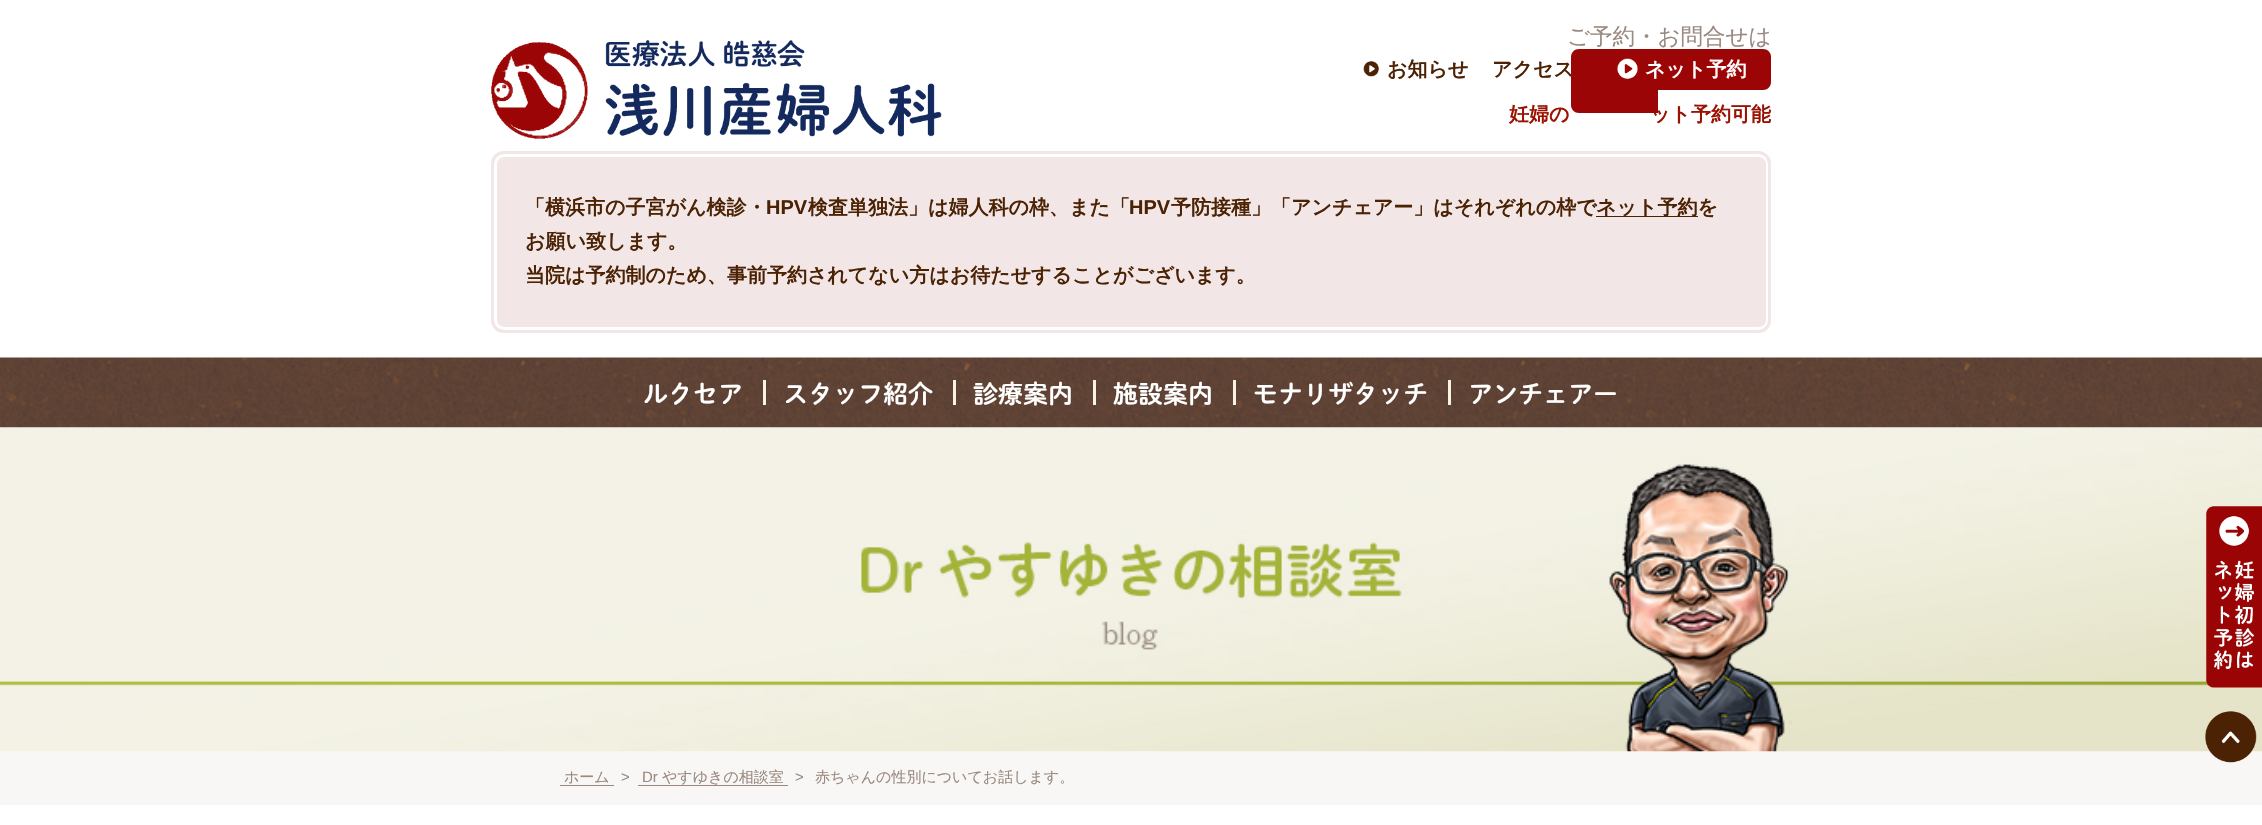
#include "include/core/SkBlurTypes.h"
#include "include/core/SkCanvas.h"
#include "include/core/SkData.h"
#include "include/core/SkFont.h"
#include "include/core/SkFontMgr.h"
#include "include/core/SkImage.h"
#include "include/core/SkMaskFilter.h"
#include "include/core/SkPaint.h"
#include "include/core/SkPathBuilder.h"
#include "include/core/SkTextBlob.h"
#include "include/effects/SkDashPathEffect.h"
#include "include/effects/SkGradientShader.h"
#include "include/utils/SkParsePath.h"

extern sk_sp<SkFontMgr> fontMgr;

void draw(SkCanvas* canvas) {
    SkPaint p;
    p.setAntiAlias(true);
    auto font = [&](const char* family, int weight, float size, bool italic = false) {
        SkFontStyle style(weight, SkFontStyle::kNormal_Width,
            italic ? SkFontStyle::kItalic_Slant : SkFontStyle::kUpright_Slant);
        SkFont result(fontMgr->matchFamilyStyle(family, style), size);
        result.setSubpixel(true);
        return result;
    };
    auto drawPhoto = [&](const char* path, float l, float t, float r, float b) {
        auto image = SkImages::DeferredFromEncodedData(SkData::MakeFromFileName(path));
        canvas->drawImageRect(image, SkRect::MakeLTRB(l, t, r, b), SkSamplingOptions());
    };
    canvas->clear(0xFFFFFFFF);
    drawPhoto("media/1.png", 491, 40, 942, 139);
    auto font1 = font("WenQuanYi Zen Hei", 500, 22.5f);
    p.setColor(0xFF998980);
    canvas->drawString("ご予約・お問合せは", 1567, 44, font1, p);
    drawPhoto("media/2.png", 1363, 61, 1379, 77);
    auto font2 = font("WenQuanYi Zen Hei", 700, 20);
    p.setColor(0xFF4C2204);
    canvas->drawString("お知らせ", 1387, 76, font2, p);
    canvas->drawString("アクセス", 1492, 76, font2, p);
    p.setColor(0xFF9B1203);
    canvas->drawString("ット予約可能", 1650, 121, font2, p);
    p.setColor(0xFF9B0505);
    canvas->drawPath(SkPathBuilder().moveTo(1579, 49).lineTo(1658, 49).lineTo(1658, 113).lineTo(1579, 113).cubicTo(1574.5f, 113, 1571, 109.5f, 1571, 105).lineTo(1571, 57).cubicTo(1571, 52.5f, 1574.5f, 49, 1579, 49).close().detach(), p);
    canvas->drawPath(SkPathBuilder().moveTo(1645, 49).lineTo(1763, 49).cubicTo(1767.5f, 49, 1771, 52.5f, 1771, 57).lineTo(1771, 82).cubicTo(1771, 86.5f, 1767.5f, 90, 1763, 90).lineTo(1645, 90).close().detach(), p);
    drawPhoto("media/3.png", 1617, 58, 1638, 79);
    p.setColor(0xFFFFFFFF);
    canvas->drawString("ネット予約", 1645, 76, font2, p);
    p.setColor(0xFF9B1203);
    canvas->drawString("妊婦の", 1509, 121, font2, p);
    p.setColor(0xFFF2E7E6);
    canvas->drawRoundRect(SkRect::MakeLTRB(491, 151, 1771, 333), 13, 13, p);
    p.setStyle(SkPaint::kStroke_Style);
    p.setStrokeWidth(3);
    p.setColor(0xFFFFFFFF);
    canvas->drawRoundRect(SkRect::MakeLTRB(495.5f, 155.5f, 1767.5f, 328.5f), 8.5f, 8.5f, p);
    p.setColor(0xFFF2E7E6);
    canvas->drawRoundRect(SkRect::MakeLTRB(492.5f, 152.5f, 1769.5f, 331.5f), 11.5f, 11.5f, p);
    p.setStyle(SkPaint::kFill_Style);
    p.setColor(0xFF4C2204);
    canvas->drawString("「横浜市の子宮がん検診・", 525, 214, font2, p);
    auto font3 = font("Liberation Sans", 700, 20);
    canvas->drawString("HPV", 766, 214, font3, p);
    canvas->drawString("検査単独法」は婦人科の枠、また「", 808, 214, font2, p);
    canvas->drawString("HPV", 1129, 214, font3, p);
    canvas->drawString("予防接種」「アンチェアー」はそれぞれの枠で", 1171, 214, font2, p);
    canvas->drawRect(SkRect::MakeLTRB(1596, 216, 1698, 217), p);
    {
        const struct { const char* s; float x, y; } items[] = {
            {"ネット予約を", 1596, 214},
            {"お願い致します。", 525, 248},
            {"当院は予約制のため、事前予約されてない方はお待たせすることがございます。", 525, 282},
        };
        for (auto [s, x, y] : items) {
            canvas->drawString(s, x, y, font2, p);
        }
    }
    drawPhoto("media/4.png", 0, 357, 2262, 428);
    p.setColor(0xFFFAF3E3);
    canvas->drawRect(SkRect::MakeLTRB(763, 380, 766, 405), p);
    auto font4 = font("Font", 600, 25);
    p.setColor(0xFFFFFFFF);
    canvas->drawString("ルクセア", 643, 403, font4, p);
    p.setColor(0xFFFAF3E3);
    canvas->drawRect(SkRect::MakeLTRB(953, 380, 956, 405), p);
    p.setColor(0xFFFFFFFF);
    canvas->drawString("スタッフ紹介", 783, 403, font4, p);
    p.setColor(0xFFFAF3E3);
    canvas->drawRect(SkRect::MakeLTRB(1093, 380, 1096, 405), p);
    p.setColor(0xFFFFFFFF);
    canvas->drawString("診療案内", 973, 403, font4, p);
    p.setColor(0xFFFAF3E3);
    canvas->drawRect(SkRect::MakeLTRB(1233, 380, 1236, 405), p);
    p.setColor(0xFFFFFFFF);
    canvas->drawString("施設案内", 1113, 403, font4, p);
    p.setColor(0xFFFAF3E3);
    canvas->drawRect(SkRect::MakeLTRB(1448, 380, 1451, 405), p);
    p.setColor(0xFFFFFFFF);
    canvas->drawString("モナリザタッチ", 1253, 403, font4, p);
    canvas->drawString("アンチェアー", 1468, 403, font4, p);
    p.setColor(0xFFF9F7F5);
    canvas->drawRect(SkRect::MakeLTRB(0, 751, 2262, 805), p);
    drawPhoto("media/5.png", 0, 427, 2262, 752);
    drawPhoto("media/6.png", 2206, 506, 2262, 688);
    drawPhoto("media/7.png", 2205, 711, 2257, 763);
    p.setColor(0xFF998980);
    canvas->drawRect(SkRect::MakeLTRB(560, 785, 614, 786), p);
    auto font5 = font("WenQuanYi Zen Hei", 500, 15);
    canvas->drawString("ホーム", 564, 782, font5, p);
    auto font6 = font("Liberation Sans", 400, 15);
    canvas->drawString(">", 621, 782, font6, p);
    canvas->drawRect(SkRect::MakeLTRB(638, 785, 788, 786), p);
    canvas->drawString("Dr", 642, 782, font6, p);
    canvas->drawString("やすゆきの相談室", 662, 782, font5, p);
    canvas->drawString(">", 795, 782, font6, p);
    canvas->drawString("赤ちゃんの性別についてお話します。", 815, 782, font5, p);
}
